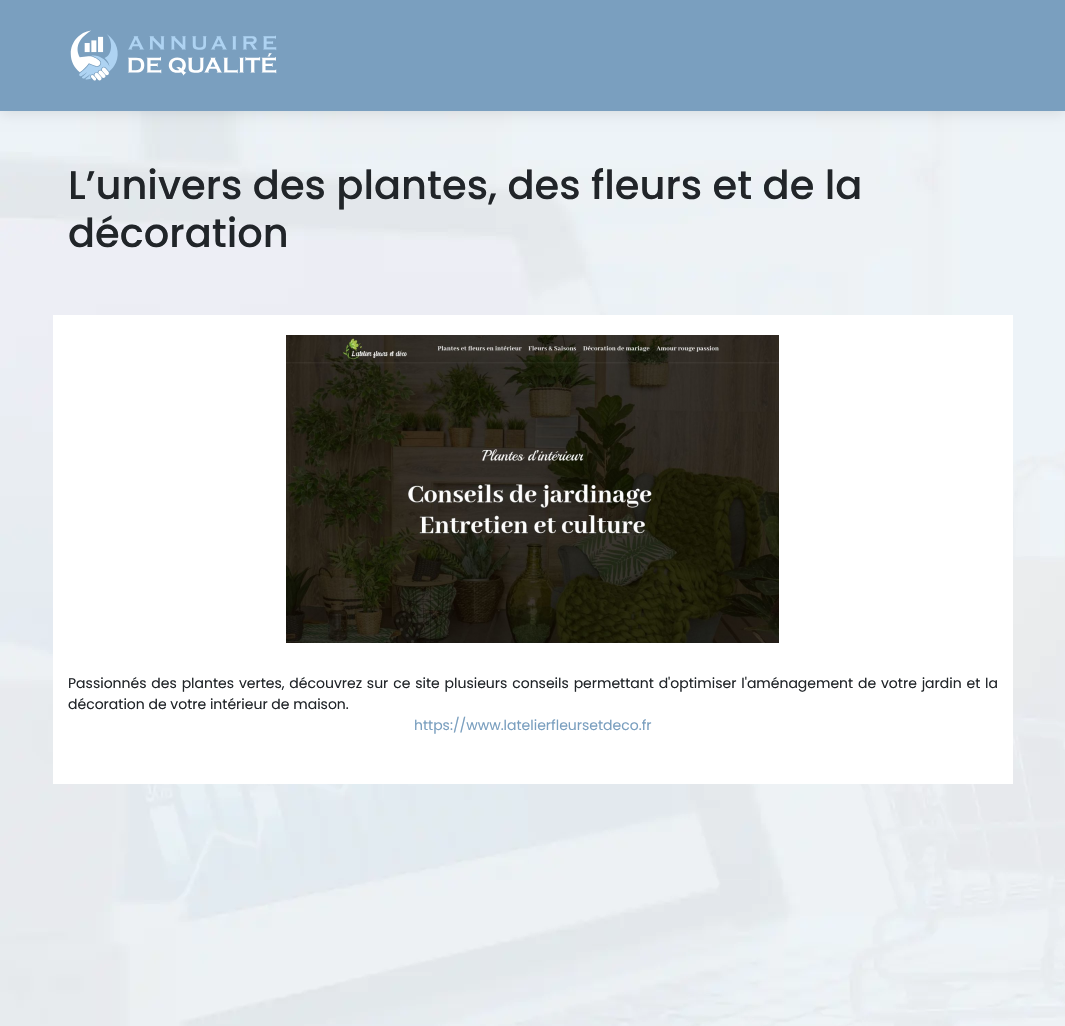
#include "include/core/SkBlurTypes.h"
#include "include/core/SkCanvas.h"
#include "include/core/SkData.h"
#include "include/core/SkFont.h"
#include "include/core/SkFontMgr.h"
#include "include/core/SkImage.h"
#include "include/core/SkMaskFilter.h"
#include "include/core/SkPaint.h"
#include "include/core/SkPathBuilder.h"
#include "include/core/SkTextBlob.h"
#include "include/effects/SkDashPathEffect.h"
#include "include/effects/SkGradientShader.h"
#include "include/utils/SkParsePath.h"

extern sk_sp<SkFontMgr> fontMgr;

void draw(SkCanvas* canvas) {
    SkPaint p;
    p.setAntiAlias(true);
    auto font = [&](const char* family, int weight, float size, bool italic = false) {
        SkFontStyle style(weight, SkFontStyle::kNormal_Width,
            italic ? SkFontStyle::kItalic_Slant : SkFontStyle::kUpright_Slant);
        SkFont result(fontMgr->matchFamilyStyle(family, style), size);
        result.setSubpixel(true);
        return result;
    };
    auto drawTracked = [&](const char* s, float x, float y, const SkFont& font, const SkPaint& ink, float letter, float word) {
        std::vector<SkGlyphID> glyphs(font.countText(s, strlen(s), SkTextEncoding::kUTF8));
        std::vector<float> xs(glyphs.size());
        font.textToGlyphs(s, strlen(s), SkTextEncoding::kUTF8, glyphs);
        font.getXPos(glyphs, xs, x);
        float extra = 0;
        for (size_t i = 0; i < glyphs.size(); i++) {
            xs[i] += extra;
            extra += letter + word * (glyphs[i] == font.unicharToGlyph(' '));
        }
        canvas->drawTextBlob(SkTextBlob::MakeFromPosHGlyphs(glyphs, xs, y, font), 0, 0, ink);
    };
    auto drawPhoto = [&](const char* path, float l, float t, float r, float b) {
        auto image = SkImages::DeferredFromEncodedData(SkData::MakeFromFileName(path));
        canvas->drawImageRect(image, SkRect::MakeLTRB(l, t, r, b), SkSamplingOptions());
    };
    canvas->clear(0xFFFFFFFF);
    drawPhoto("media/1.png", 0, 111, 1065, 1026);
    p.setColor(0x1A000000);
    p.setMaskFilter(SkMaskFilter::MakeBlur(kNormal_SkBlurStyle, 6.5f));
    canvas->drawRect(SkRect::MakeLTRB(0, 2, 1065, 113), p);
    p.setMaskFilter(nullptr);
    p.setColor(0xFF7A9FBF);
    canvas->drawRect(SkRect::MakeLTRB(0, 0, 1065, 111), p);
    drawPhoto("media/2.png", 70, 30, 277, 81);
    auto font1 = font("Poppins", 500, 40);
    p.setColor(0xFF212529);
    canvas->drawString("L’univers des plantes, des fleurs et de la", 68, 199, font1, p);
    canvas->drawString("décoration", 68, 247, font1, p);
    p.setColor(0xFFFFFFFF);
    canvas->drawRect(SkRect::MakeLTRB(53, 315, 1013, 784), p);
    drawPhoto("media/3.png", 286, 335, 779, 643);
    auto font2 = font("Poppins", 400, 14);
    p.setColor(0xFF212529);
    drawTracked("Passionnés des plantes vertes, découvrez sur ce site plusieurs conseils permettant d'optimiser l'aménagement de votre jardin et la", 68, 688, font2, p, 0, 1.1f);
    canvas->drawString("décoration de votre intérieur de maison.", 68, 709, font2, p);
    p.setColor(0xFF7A9FBF);
    canvas->drawString("https://www.latelierfleursetdeco.fr", 414, 730, font2, p);
}
